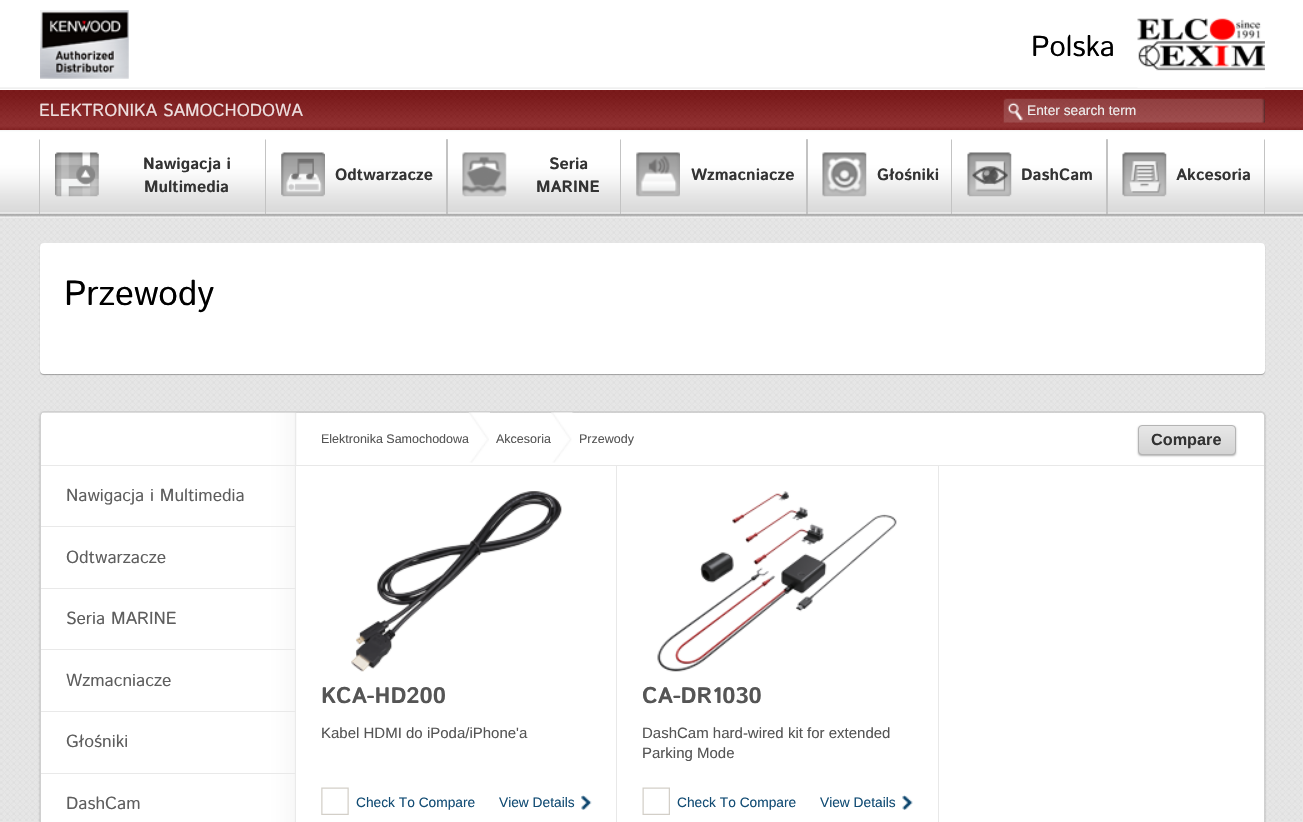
#include "include/core/SkBlurTypes.h"
#include "include/core/SkCanvas.h"
#include "include/core/SkData.h"
#include "include/core/SkFont.h"
#include "include/core/SkFontMgr.h"
#include "include/core/SkImage.h"
#include "include/core/SkMaskFilter.h"
#include "include/core/SkPaint.h"
#include "include/core/SkPathBuilder.h"
#include "include/core/SkTextBlob.h"
#include "include/effects/SkDashPathEffect.h"
#include "include/effects/SkGradientShader.h"
#include "include/utils/SkParsePath.h"

extern sk_sp<SkFontMgr> fontMgr;

void draw(SkCanvas* canvas) {
    SkPaint p;
    p.setAntiAlias(true);
    auto font = [&](const char* family, int weight, float size, bool italic = false) {
        SkFontStyle style(weight, SkFontStyle::kNormal_Width,
            italic ? SkFontStyle::kItalic_Slant : SkFontStyle::kUpright_Slant);
        SkFont result(fontMgr->matchFamilyStyle(family, style), size);
        result.setSubpixel(true);
        return result;
    };
    auto drawPhoto = [&](const char* path, float l, float t, float r, float b) {
        auto image = SkImages::DeferredFromEncodedData(SkData::MakeFromFileName(path));
        canvas->drawImageRect(image, SkRect::MakeLTRB(l, t, r, b), SkSamplingOptions());
    };
    canvas->clear(0xFFE6E6E6);
    drawPhoto("media/1.png", 0, 218, 1302, 821);
    p.setColor(0xFFFFFFFF);
    canvas->drawRect(SkRect::MakeLTRB(0, 0, 1303, 90), p);
    drawPhoto("media/2.png", 0, 87, 1303, 89);
    drawPhoto("media/3.png", 40, 10, 129, 79);
    auto font1 = font("Istok Web", 400, 29);
    p.setColor(0xFF000000);
    canvas->drawString("Polska", 1031, 56, font1, p);
    drawPhoto("media/4.png", 1137, 18, 1265, 88);
    drawPhoto("media/5.png", 0, 90, 1303, 130);
    auto font2 = font("Istok Web", 400, 17.5f);
    p.setColor(0xFFEDDEDE);
    canvas->drawString("ELEKTRONIKA SAMOCHODOWA", 39, 116, font2, p);
    drawPhoto("media/6.png", 1003, 98, 1265, 123);
    auto font3 = font("Liberation Sans", 400, 13.75f);
    p.setColor(0xFFEEEEEE);
    canvas->drawString("Enter search term", 1027, 115, font3, p);
    p.setColor(0xFFF6F6F6);
    canvas->drawRect(SkRect::MakeLTRB(0, 130, 1303, 218), p);
    drawPhoto("media/7.png", 0, 131, 1303, 218);
    p.setColor(0xFFC3C3C3);
    canvas->drawPath(SkPathBuilder().moveTo(39, 214).lineTo(39, 139).lineTo(40, 140).lineTo(40, 214).close().detach(), p);
    drawPhoto("media/8.png", 55, 152, 99, 197);
    auto font4 = font("Istok Web", 700, 16.25f);
    p.setColor(0xFF333333);
    canvas->drawString("Nawigacja i", 143, 169, font4, p);
    canvas->drawString("Multimedia", 144, 192, font4, p);
    p.setColor(0xFFC3C3C3);
    canvas->drawPath(SkPathBuilder().moveTo(448, 139).lineTo(448, 214).lineTo(446, 214).lineTo(446, 140).close().detach(), p);
    canvas->drawPath(SkPathBuilder().moveTo(265, 214).lineTo(265, 139).lineTo(266, 140).lineTo(266, 214).close().detach(), p);
    drawPhoto("media/9.png", 281, 152, 325, 197);
    p.setColor(0xFF333333);
    canvas->drawString("Odtwarzacze", 335, 180, font4, p);
    p.setColor(0xFFC3C3C3);
    canvas->drawPath(SkPathBuilder().moveTo(446, 214).lineTo(446, 139).lineTo(448, 140).lineTo(448, 214).close().detach(), p);
    drawPhoto("media/10.png", 462, 152, 507, 197);
    p.setColor(0xFF333333);
    canvas->drawString("Seria", 549, 169, font4, p);
    canvas->drawString("MARINE", 536, 192, font4, p);
    p.setColor(0xFFC3C3C3);
    canvas->drawPath(SkPathBuilder().moveTo(808, 139).lineTo(808, 214).lineTo(806, 214).lineTo(806, 140).close().detach(), p);
    canvas->drawPath(SkPathBuilder().moveTo(620, 214).lineTo(620, 139).lineTo(621, 140).lineTo(621, 214).close().detach(), p);
    drawPhoto("media/11.png", 636, 152, 680, 197);
    p.setColor(0xFF333333);
    canvas->drawString("Wzmacniacze", 691, 180, font4, p);
    p.setColor(0xFFC3C3C3);
    canvas->drawPath(SkPathBuilder().moveTo(806, 214).lineTo(806, 139).lineTo(808, 140).lineTo(808, 214).close().detach(), p);
    drawPhoto("media/12.png", 822, 152, 867, 197);
    p.setColor(0xFF333333);
    canvas->drawString("Głośniki", 877, 180, font4, p);
    p.setColor(0xFFC3C3C3);
    canvas->drawPath(SkPathBuilder().moveTo(1108, 139).lineTo(1108, 214).lineTo(1106, 214).lineTo(1106, 140).close().detach(), p);
    canvas->drawPath(SkPathBuilder().moveTo(951, 214).lineTo(951, 139).lineTo(952, 140).lineTo(952, 214).close().detach(), p);
    drawPhoto("media/13.png", 967, 152, 1012, 197);
    p.setColor(0xFF333333);
    canvas->drawString("DashCam", 1021, 180, font4, p);
    p.setColor(0xFFC3C3C3);
    canvas->drawPath(SkPathBuilder().moveTo(1265, 139).lineTo(1265, 214).lineTo(1264, 214).lineTo(1264, 140).close().detach(), p);
    canvas->drawPath(SkPathBuilder().moveTo(1106, 214).lineTo(1106, 139).lineTo(1108, 140).lineTo(1108, 214).close().detach(), p);
    drawPhoto("media/14.png", 1122, 152, 1167, 197);
    p.setColor(0xFF333333);
    canvas->drawString("Akcesoria", 1176, 180, font4, p);
    p.setColor(0x4D000000);
    p.setMaskFilter(SkMaskFilter::MakeBlur(kNormal_SkBlurStyle, 0.5f));
    canvas->drawRoundRect(SkRect::MakeLTRB(40, 244, 1265, 375), 4, 4, p);
    p.setMaskFilter(nullptr);
    p.setColor(0xFFFFFFFF);
    canvas->drawRoundRect(SkRect::MakeLTRB(40, 243, 1265, 374), 4, 4, p);
    auto font5 = font("Istok Web", 400, 35);
    p.setColor(0xFF000000);
    canvas->drawString("Przewody", 64, 305, font5, p);
    p.setColor(0x4D000000);
    p.setMaskFilter(SkMaskFilter::MakeBlur(kNormal_SkBlurStyle, 1));
    canvas->drawRoundRect(SkRect::MakeLTRB(40, 413, 1265, 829), 4, 4, p);
    p.setMaskFilter(nullptr);
    p.setColor(0xFFFFFFFF);
    canvas->drawRoundRect(SkRect::MakeLTRB(41, 413, 1264, 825), 2.5f, 2.5f, p);
    drawPhoto("media/15.png", 41, 412, 297, 822);
    p.setStyle(SkPaint::kStroke_Style);
    p.setStrokeWidth(1);
    p.setColor(0xFFD0D0D0);
    canvas->drawRoundRect(SkRect::MakeLTRB(40.5f, 411.5f, 1264.5f, 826.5f), 3.5f, 3.5f, p);
    p.setStyle(SkPaint::kFill_Style);
    p.setColor(0xFFE9E9E9);
    canvas->drawRect(SkRect::MakeLTRB(41, 465, 296, 466), p);
    canvas->drawRect(SkRect::MakeLTRB(41, 526, 296, 527), p);
    p.setColor(0xFF5E5E5E);
    canvas->drawString("Nawigacja i Multimedia", 66, 501, font2, p);
    p.setColor(0xFFE9E9E9);
    canvas->drawRect(SkRect::MakeLTRB(41, 588, 296, 589), p);
    p.setColor(0xFF5E5E5E);
    canvas->drawString("Odtwarzacze", 66, 563, font2, p);
    p.setColor(0xFFE9E9E9);
    canvas->drawRect(SkRect::MakeLTRB(41, 649, 296, 650), p);
    p.setColor(0xFF5E5E5E);
    canvas->drawString("Seria MARINE", 66, 624, font2, p);
    p.setColor(0xFFE9E9E9);
    canvas->drawRect(SkRect::MakeLTRB(41, 711, 296, 712), p);
    p.setColor(0xFF5E5E5E);
    canvas->drawString("Wzmacniacze", 66, 686, font2, p);
    p.setColor(0xFFE9E9E9);
    canvas->drawRect(SkRect::MakeLTRB(41, 773, 296, 774), p);
    p.setColor(0xFF5E5E5E);
    canvas->drawString("Głośniki", 66, 747, font2, p);
    canvas->drawString("DashCam", 66, 809, font2, p);
    p.setColor(0xFFE8E8E8);
    canvas->drawRect(SkRect::MakeLTRB(296, 465, 1264, 466), p);
    auto font6 = font("Liberation Sans", 400, 12.5f);
    p.setColor(0xFF555555);
    canvas->drawString("Elektronika Samochodowa", 321, 443, font6, p);
    drawPhoto("media/16.png", 468, 412, 490, 463);
    canvas->drawString("Akcesoria", 496, 443, font6, p);
    drawPhoto("media/17.png", 551, 412, 573, 463);
    canvas->drawString("Przewody", 579, 443, font6, p);
    p.setColor(0x4D000000);
    p.setMaskFilter(SkMaskFilter::MakeBlur(kNormal_SkBlurStyle, 1));
    canvas->drawRoundRect(SkRect::MakeLTRB(1138, 426, 1236, 456), 4, 4, p);
    p.setMaskFilter(nullptr);
    {
        const SkColor colors[] = {0xFFD4D4D4, 0xFFE7E7E7};
        const float stops[] = {0, 1};
        const SkPoint ends[] = {{1139, 454}, {1139, 426}};
        p.setShader(SkGradientShader::MakeLinear(ends, colors, stops, 2, SkTileMode::kClamp));
        p.setAlpha(255);
    }
    canvas->drawRoundRect(SkRect::MakeLTRB(1139, 426, 1235, 454), 2.5f, 2.5f, p);
    p.setStyle(SkPaint::kStroke_Style);
    p.setShader(nullptr);
    p.setColor(0xFFB4B4B4);
    canvas->drawRoundRect(SkRect::MakeLTRB(1138.5f, 425.5f, 1235.5f, 454.5f), 3.5f, 3.5f, p);
    auto font7 = font("Liberation Sans", 700, 16.25f);
    p.setStyle(SkPaint::kFill_Style);
    p.setColor(0xFF333333);
    canvas->drawString("Compare", 1151, 445, font7, p);
    p.setColor(0xFFFFFFFF);
    canvas->drawRect(SkRect::MakeLTRB(296, 466, 297, 822), p);
    p.setColor(0xFFE8E8E8);
    canvas->drawRect(SkRect::MakeLTRB(616, 466, 617, 822), p);
    drawPhoto("media/18.png", 351, 491, 562, 672);
    auto font8 = font("Istok Web", 700, 22.5f);
    p.setColor(0xFF555555);
    canvas->drawString("KCA-HD200", 321, 703, font8, p);
    auto font9 = font("Liberation Sans", 400, 15);
    canvas->drawString("Kabel HDMI do iPoda/iPhone'a", 321, 738, font9, p);
    drawPhoto("media/19.png", 321, 787, 349, 815);
    p.setColor(0xFF134D75);
    canvas->drawString("Check To Compare", 356, 807, font3, p);
    drawPhoto("media/20.png", 581, 795, 592, 810);
    canvas->drawString("View Details", 499, 807, font3, p);
    p.setColor(0xFFE8E8E8);
    canvas->drawRect(SkRect::MakeLTRB(938, 466, 939, 822), p);
    drawPhoto("media/21.png", 657, 491, 897, 672);
    p.setColor(0xFF555555);
    canvas->drawString("CA-DR1030", 642, 703, font8, p);
    canvas->drawString("DashCam hard-wired kit for extended", 642, 738, font9, p);
    canvas->drawString("Parking Mode", 642, 758, font9, p);
    drawPhoto("media/22.png", 642, 787, 670, 815);
    p.setColor(0xFF134D75);
    canvas->drawString("Check To Compare", 677, 807, font3, p);
    drawPhoto("media/23.png", 902, 795, 913, 810);
    canvas->drawString("View Details", 820, 807, font3, p);
}
